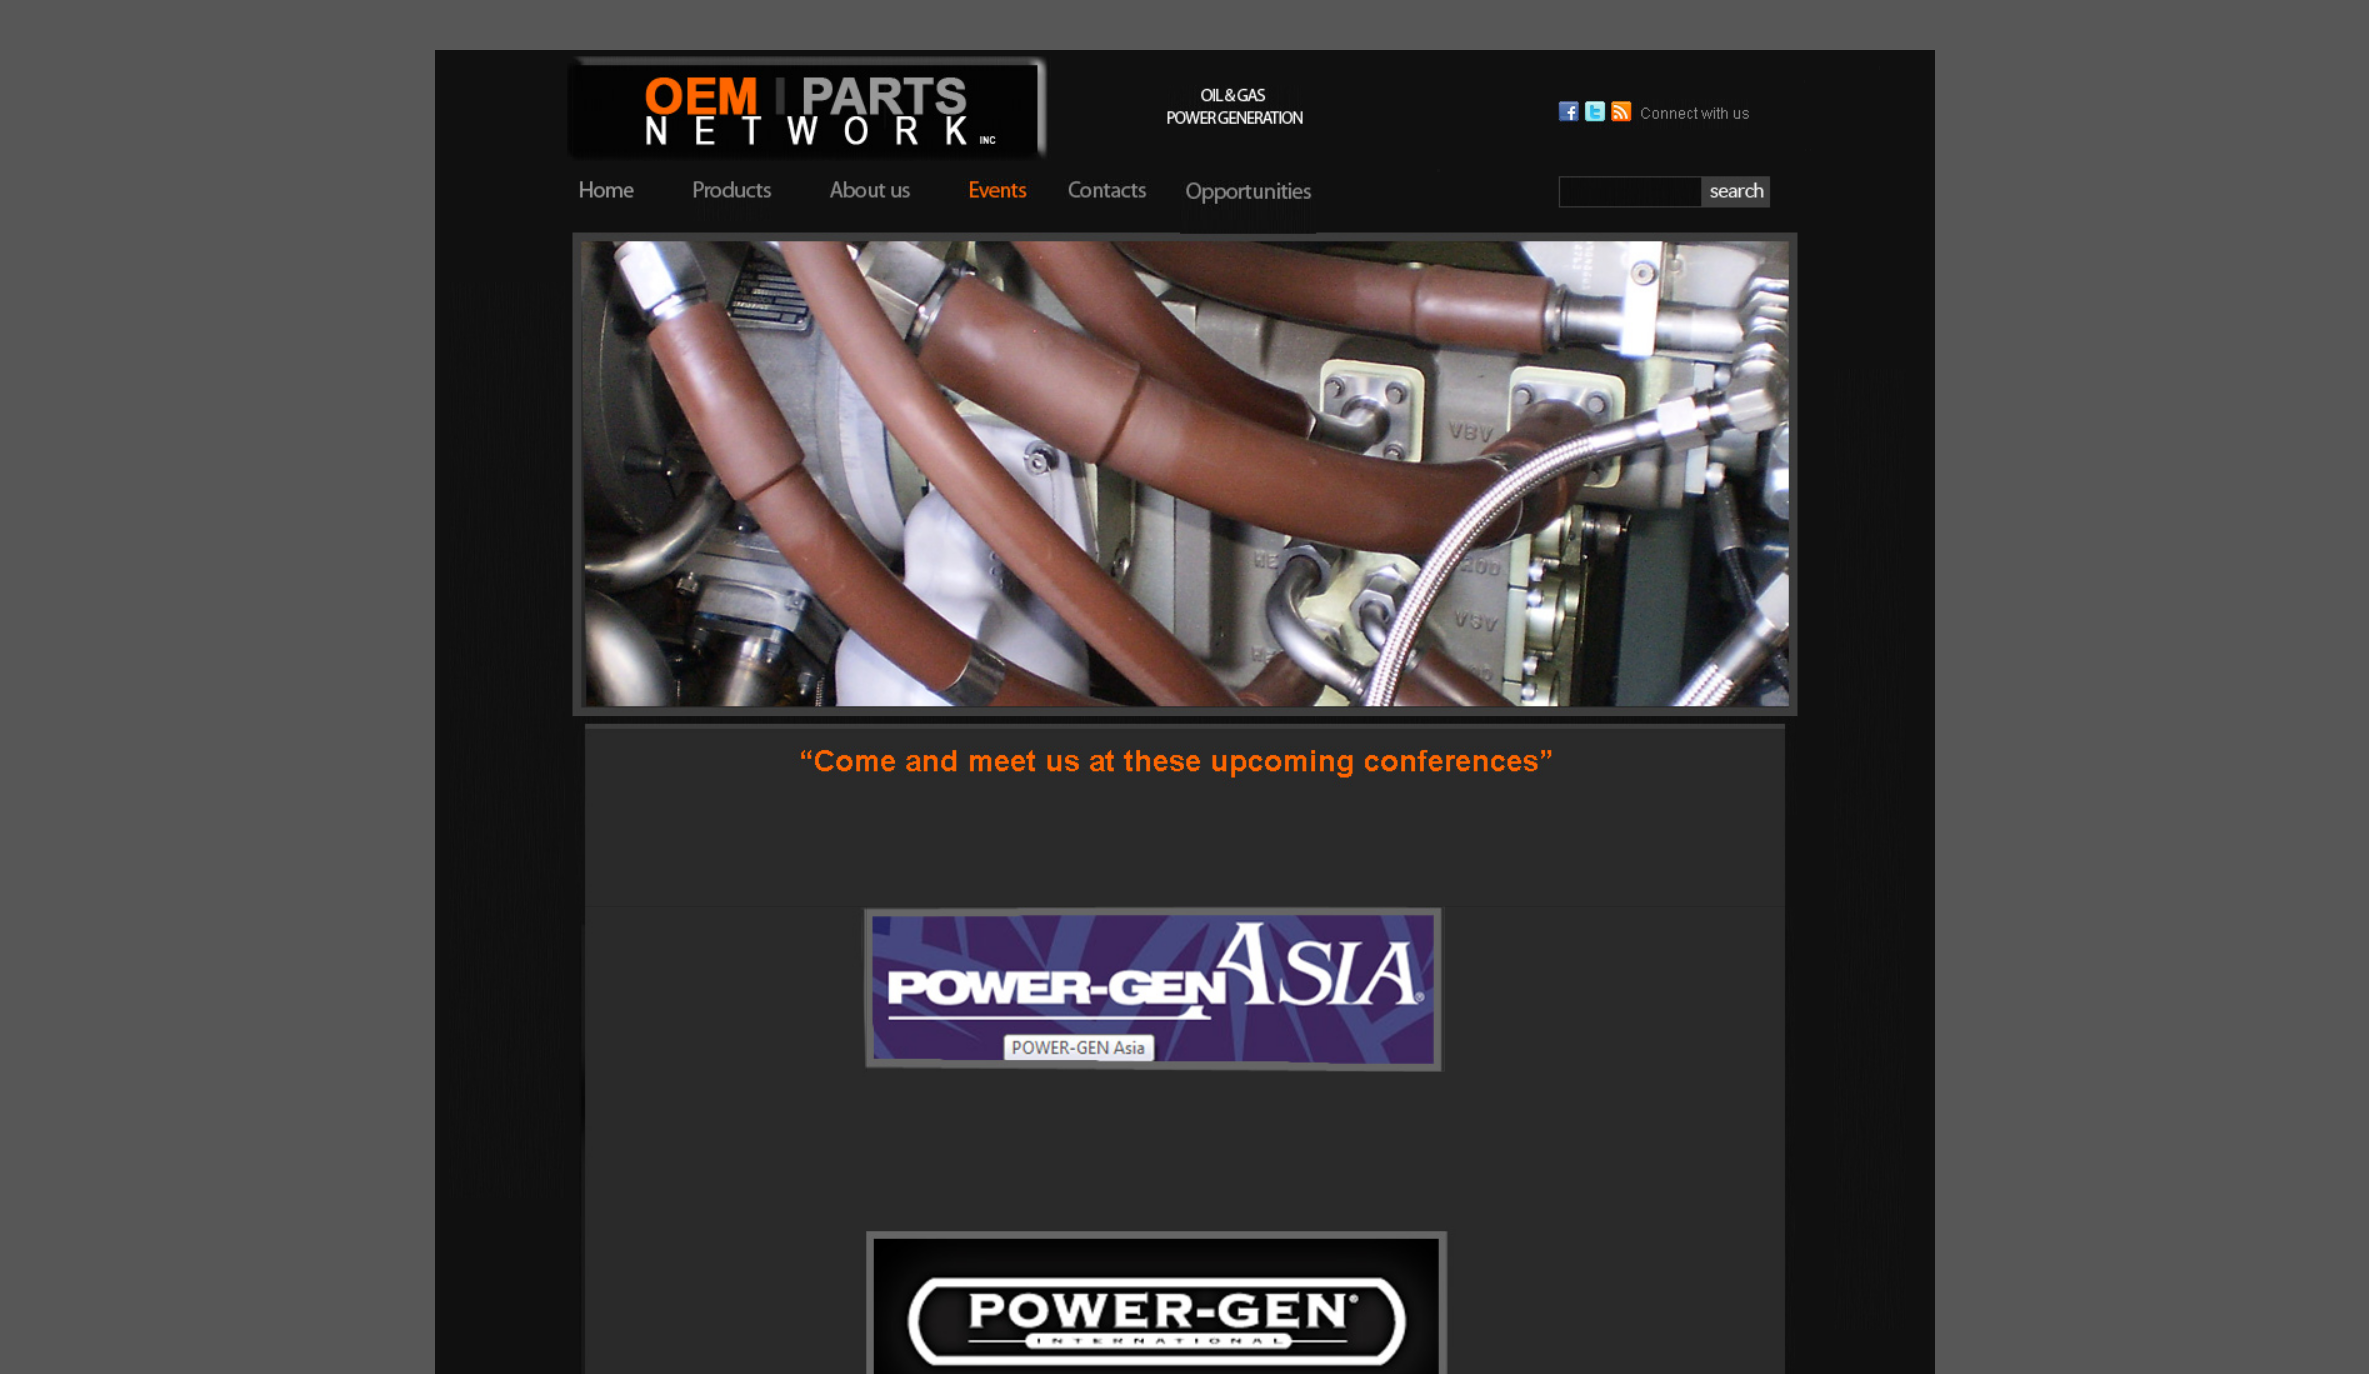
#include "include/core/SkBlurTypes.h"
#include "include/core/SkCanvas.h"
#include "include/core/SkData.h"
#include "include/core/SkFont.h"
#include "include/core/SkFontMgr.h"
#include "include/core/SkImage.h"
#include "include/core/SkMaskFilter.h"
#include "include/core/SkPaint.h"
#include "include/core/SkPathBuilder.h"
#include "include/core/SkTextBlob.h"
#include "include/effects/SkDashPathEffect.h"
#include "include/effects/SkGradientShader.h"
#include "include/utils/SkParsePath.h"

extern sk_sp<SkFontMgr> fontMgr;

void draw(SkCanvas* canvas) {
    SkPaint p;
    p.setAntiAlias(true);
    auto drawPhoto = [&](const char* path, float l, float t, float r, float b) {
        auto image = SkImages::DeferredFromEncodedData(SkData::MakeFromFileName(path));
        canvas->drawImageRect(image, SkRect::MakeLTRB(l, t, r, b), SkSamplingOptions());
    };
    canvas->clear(0xFF575757);
    p.setColor(0xFF101010);
    canvas->drawRect(SkRect::MakeLTRB(435, 50, 1935, 1374), p);
    drawPhoto("media/1.png", 567, 63, 573, 157);
    drawPhoto("media/2.png", 572, 56, 1051, 161);
    p.setColor(0xFF151515);
    canvas->drawRect(SkRect::MakeLTRB(1879, 66, 1880, 70), p);
    canvas->drawRect(SkRect::MakeLTRB(1804, 80, 1805, 83), p);
    drawPhoto("media/3.png", 1167, 85, 1303, 124);
    drawPhoto("media/4.png", 1558, 99, 1749, 129);
    drawPhoto("media/5.png", 1805, 149, 1811, 151);
    canvas->drawRect(SkRect::MakeLTRB(1437, 169, 1440, 172), p);
    drawPhoto("media/6.png", 579, 180, 634, 198);
    drawPhoto("media/7.png", 693, 181, 772, 221);
    drawPhoto("media/8.png", 828, 180, 911, 199);
    drawPhoto("media/9.png", 962, 178, 1033, 199);
    drawPhoto("media/10.png", 1064, 179, 1151, 199);
    drawPhoto("media/15.png", 572, 232, 1798, 717);
    drawPhoto("media/11.png", 1180, 180, 1317, 234);
    drawPhoto("media/12.png", 1558, 176, 1771, 208);
    drawPhoto("media/13.png", 449, 282, 565, 1198);
    drawPhoto("media/14.png", 1834, 369, 1906, 1330);
    drawPhoto("media/16.png", 573, 716, 1797, 815);
    drawPhoto("media/17.png", 575, 815, 1786, 907);
    drawPhoto("media/18.png", 579, 906, 867, 1374);
    drawPhoto("media/19.png", 866, 906, 1445, 1072);
    drawPhoto("media/20.png", 1445, 906, 1795, 1374);
    p.setColor(0xFF2A2A2A);
    canvas->drawRect(SkRect::MakeLTRB(866, 1072, 1445, 1232), p);
    drawPhoto("media/21.png", 866, 1231, 1445, 1374);
}
